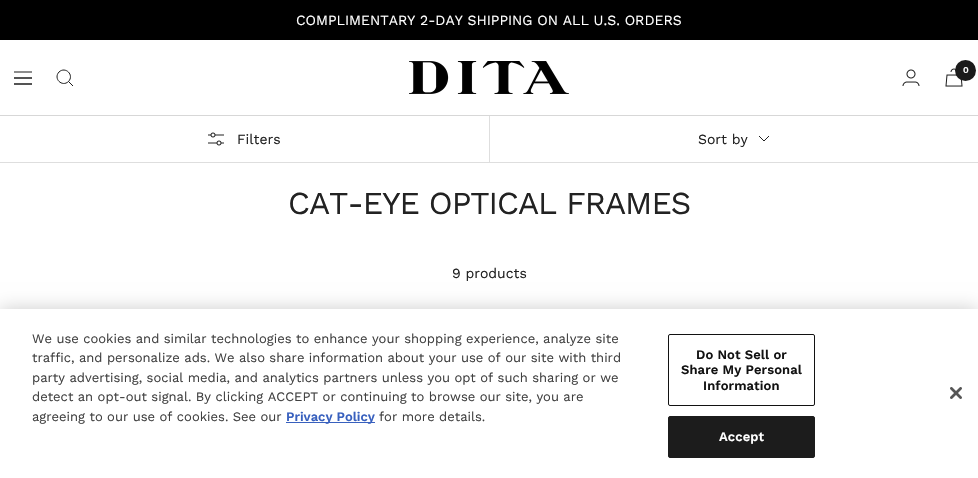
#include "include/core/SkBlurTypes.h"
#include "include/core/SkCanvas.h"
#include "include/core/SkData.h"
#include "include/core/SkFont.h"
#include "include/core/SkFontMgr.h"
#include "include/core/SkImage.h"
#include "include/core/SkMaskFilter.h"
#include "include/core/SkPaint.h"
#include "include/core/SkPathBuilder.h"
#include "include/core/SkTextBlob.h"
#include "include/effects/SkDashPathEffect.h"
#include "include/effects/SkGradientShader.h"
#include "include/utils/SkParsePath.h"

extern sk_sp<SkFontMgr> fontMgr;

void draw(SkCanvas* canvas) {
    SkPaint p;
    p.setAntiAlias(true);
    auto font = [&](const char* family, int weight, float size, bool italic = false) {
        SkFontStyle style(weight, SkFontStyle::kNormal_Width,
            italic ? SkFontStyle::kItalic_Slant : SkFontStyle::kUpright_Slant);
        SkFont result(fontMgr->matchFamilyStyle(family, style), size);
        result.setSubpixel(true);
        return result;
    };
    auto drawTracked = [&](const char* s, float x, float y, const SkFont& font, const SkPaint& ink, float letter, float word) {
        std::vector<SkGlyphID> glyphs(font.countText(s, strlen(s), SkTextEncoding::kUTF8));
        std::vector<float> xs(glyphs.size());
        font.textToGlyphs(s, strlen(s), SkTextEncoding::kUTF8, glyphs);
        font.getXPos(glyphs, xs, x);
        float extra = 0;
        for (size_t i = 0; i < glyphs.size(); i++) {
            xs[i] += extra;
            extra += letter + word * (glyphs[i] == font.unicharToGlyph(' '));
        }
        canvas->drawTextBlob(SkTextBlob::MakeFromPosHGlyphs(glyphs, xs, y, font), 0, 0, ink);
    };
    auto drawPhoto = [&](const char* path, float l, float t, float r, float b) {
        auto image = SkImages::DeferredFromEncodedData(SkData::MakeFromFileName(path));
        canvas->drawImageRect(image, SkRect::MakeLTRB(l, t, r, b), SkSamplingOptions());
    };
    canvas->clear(0xFFFFFFFF);
    p.setColor(0xFF000000);
    canvas->drawRect(SkRect::MakeLTRB(0, 0, 978, 40), p);
    auto font1 = font("Work Sans", 400, 14);
    p.setColor(0xFFFFFFFF);
    canvas->drawString("COMPLIMENTARY 2-DAY SHIPPING ON ALL U.S. ORDERS", 296, 25, font1, p);
    {
        const struct { float l, t, r, b; SkColor color; } items[] = {
            {0, 162, 978, 163, 0xFFDEDEDE},
            {489, 115, 490, 163, 0xFFDEDEDE},
            {0, 115, 978, 116, 0xFFD7D7D7},
        };
        for (auto [l, t, r, b, color] : items) {
            p.setColor(color);
            canvas->drawRect(SkRect::MakeLTRB(l, t, r, b), p);
        }
    }
    p.setStyle(SkPaint::kStroke_Style);
    p.setStrokeWidth(1);
    p.setColor(0xFF1B1B1B);
    canvas->drawPath(SkPathBuilder().moveTo(14, 72).lineTo(32, 72).moveTo(14, 84).lineTo(32, 84).close().moveTo(14, 78).lineTo(32, 78).close().moveTo(68.5f, 81.5f).cubicTo(74.5f, 75, 65.5f, 66, 59, 72).cubicTo(53, 78.5f, 62, 87.5f, 68.5f, 81.5f).close().moveTo(68.5f, 81.5f).lineTo(73, 86).detach(), p);
    drawPhoto("media/1.png", 409, 61, 569, 94);
    drawPhoto("media/2.png", 902, 69, 920, 86);
    drawPhoto("media/3.png", 945, 68, 963, 87);
    p.setStyle(SkPaint::kFill_Style);
    canvas->drawCircle(965.5f, 70.5f, 10.5f, p);
    auto font2 = font("Work Sans", 600, 9);
    p.setColor(0xFFFFFFFF);
    canvas->drawString("0", 963, 73, font2, p);
    drawPhoto("media/4.png", 208, 132, 224, 146);
    p.setColor(0xFF222222);
    canvas->drawString("Filters", 237, 144, font1, p);
    canvas->drawString("Sort by", 698, 144, font1, p);
    p.setStyle(SkPaint::kStroke_Style);
    canvas->drawPath(SkPathBuilder().moveTo(759, 136).lineTo(764, 141).lineTo(769, 136).detach(), p);
    auto font3 = font("Work Sans", 400, 32);
    p.setStyle(SkPaint::kFill_Style);
    drawTracked("CAT-EYE OPTICAL FRAMES", 288, 214, font3, p, -1, 0);
    canvas->drawString("9 products", 452, 278, font1, p);
    p.setColor(0x33000000);
    p.setMaskFilter(SkMaskFilter::MakeBlur(kNormal_SkBlurStyle, 9));
    canvas->drawRect(SkRect::MakeLTRB(0, 309, 978, 478), p);
    p.setMaskFilter(nullptr);
    p.setColor(0xFFFFFFFF);
    canvas->drawRect(SkRect::MakeLTRB(0, 309, 978, 478), p);
    auto font4 = font("Work Sans", 400, 13);
    p.setColor(0xFF404040);
    {
        const struct { const char* s; float x, y; } items[] = {
            {"We use cookies and similar technologies to enhance your shopping experience, analyze site", 32, 343},
            {"traffic, and personalize ads. We also share information about your use of our site with third", 32, 362},
            {"party advertising, social media, and analytics partners unless you opt of such sharing or we", 32, 382},
            {"detect an opt-out signal. By clicking ACCEPT or continuing to browse our site, you are", 32, 401},
            {"agreeing to our use of cookies. See our", 32, 421},
        };
        for (auto [s, x, y] : items) {
            canvas->drawString(s, x, y, font4, p);
        }
    }
    p.setColor(0xFF3860BE);
    canvas->drawRect(SkRect::MakeLTRB(286, 422, 375, 423), p);
    auto font5 = font("Work Sans", 600, 13);
    canvas->drawString("Privacy Policy", 286, 421, font5, p);
    p.setColor(0xFF404040);
    canvas->drawString("for more details.", 379, 421, font4, p);
    p.setStyle(SkPaint::kStroke_Style);
    p.setColor(0xFF121212);
    canvas->drawRoundRect(SkRect::MakeLTRB(668.5f, 334.5f, 814.5f, 405.5f), 1.5f, 1.5f, p);
    p.setStyle(SkPaint::kFill_Style);
    {
        const struct { const char* s; float x, y; } items[] = {
            {"Do Not Sell or", 696, 359},
            {"Share My Personal", 681, 374},
            {"Information", 703, 390},
        };
        for (auto [s, x, y] : items) {
            drawTracked(s, x, y, font5, p, 0.1f, 0);
        }
    }
    p.setColor(0xFF1C1C1C);
    canvas->drawRoundRect(SkRect::MakeLTRB(668.5f, 416.5f, 814.5f, 457.5f), 1.5f, 1.5f, p);
    p.setStyle(SkPaint::kStroke_Style);
    canvas->drawRoundRect(SkRect::MakeLTRB(668.5f, 416.5f, 814.5f, 457.5f), 1.5f, 1.5f, p);
    p.setStyle(SkPaint::kFill_Style);
    p.setColor(0xFFFFFFFF);
    drawTracked("Accept", 719, 441, font5, p, 0.1f, 0);
    drawPhoto("media/5.png", 950, 387, 962, 399);
}
